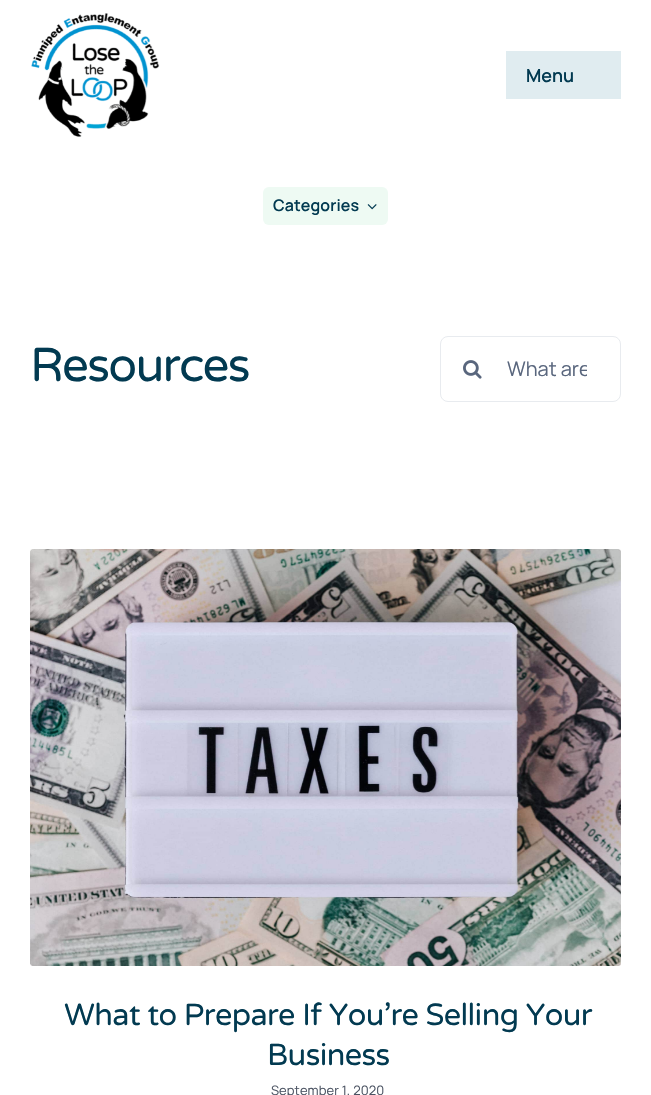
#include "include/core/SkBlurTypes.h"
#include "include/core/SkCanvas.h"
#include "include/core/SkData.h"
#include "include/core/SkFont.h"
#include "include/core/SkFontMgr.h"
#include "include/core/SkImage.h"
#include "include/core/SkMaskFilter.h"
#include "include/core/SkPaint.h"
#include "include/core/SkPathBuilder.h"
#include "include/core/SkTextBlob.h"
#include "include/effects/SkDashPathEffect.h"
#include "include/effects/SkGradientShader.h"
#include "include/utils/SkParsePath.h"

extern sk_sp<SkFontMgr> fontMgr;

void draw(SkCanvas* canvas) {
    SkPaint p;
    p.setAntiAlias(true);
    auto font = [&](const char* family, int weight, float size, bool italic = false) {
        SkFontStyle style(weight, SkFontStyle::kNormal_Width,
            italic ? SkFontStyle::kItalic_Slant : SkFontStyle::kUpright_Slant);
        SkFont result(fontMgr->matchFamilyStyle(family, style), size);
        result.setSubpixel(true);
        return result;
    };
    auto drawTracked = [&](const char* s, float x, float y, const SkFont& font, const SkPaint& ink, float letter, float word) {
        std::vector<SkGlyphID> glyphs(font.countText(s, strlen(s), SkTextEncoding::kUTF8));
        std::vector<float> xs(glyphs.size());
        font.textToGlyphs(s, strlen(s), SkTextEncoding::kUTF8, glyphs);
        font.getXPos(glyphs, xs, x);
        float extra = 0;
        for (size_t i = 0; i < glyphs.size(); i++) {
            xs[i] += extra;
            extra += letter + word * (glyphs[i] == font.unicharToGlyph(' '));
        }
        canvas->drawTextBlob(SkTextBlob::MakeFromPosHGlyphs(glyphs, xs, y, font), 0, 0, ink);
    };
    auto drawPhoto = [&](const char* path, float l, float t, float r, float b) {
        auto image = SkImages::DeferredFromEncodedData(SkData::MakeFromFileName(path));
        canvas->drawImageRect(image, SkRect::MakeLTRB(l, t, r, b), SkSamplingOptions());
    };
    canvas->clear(0xFFFFFFFF);
    drawPhoto("media/1.png", 31, 13, 160, 138);
    p.setColor(0xFFE0ECF0);
    canvas->drawRect(SkRect::MakeLTRB(506, 51, 621, 99), p);
    auto font1 = font("Manrope", 600, 18);
    p.setColor(0xFF023A51);
    canvas->drawString("Menu", 526, 82, font1, p);
    p.setColor(0xFFEEFAF3);
    canvas->drawRoundRect(SkRect::MakeLTRB(263, 187, 388, 225), 6, 6, p);
    auto font2 = font("Manrope", 600, 16);
    p.setColor(0xFF023A51);
    drawTracked("Categories", 273, 211, font2, p, 0.1f, 0);
    drawPhoto("media/2.png", 367, 204, 377, 210);
    auto font3 = font("Varela Round", 400, 47.5f);
    drawTracked("Resources", 30, 381, font3, p, -1.75f, 0);
    p.setStyle(SkPaint::kStroke_Style);
    p.setStrokeWidth(1);
    p.setColor(0xFFE8EBEF);
    canvas->drawRoundRect(SkRect::MakeLTRB(440.5f, 336.5f, 620.5f, 401.5f), 7.5f, 7.5f, p);
    drawPhoto("media/3.png", 463, 360, 482, 379);
    canvas->save();
    canvas->clipRect(SkRect::MakeLTRB(507, 355, 587, 382));
    auto font4 = font("Manrope", 400, 20);
    p.setStyle(SkPaint::kFill_Style);
    p.setColor(0xFF59667D);
    canvas->drawString("What are", 507, 376, font4, p);
    canvas->restore();
    drawPhoto("media/4.png", 30, 549, 621, 966);
    auto font5 = font("Varela Round", 400, 30.6f);
    p.setColor(0xFF023A51);
    drawTracked("What to Prepare If You’re Selling Your", 64, 1025, font5, p, -0.6f, 0);
    drawTracked("Business", 267, 1065, font5, p, -0.6f, 0);
    auto font6 = font("Manrope", 400, 13);
    p.setColor(0xFF4C5463);
    drawTracked("September 1, 2020", 271, 1095, font6, p, 0.1f, 0);
}
